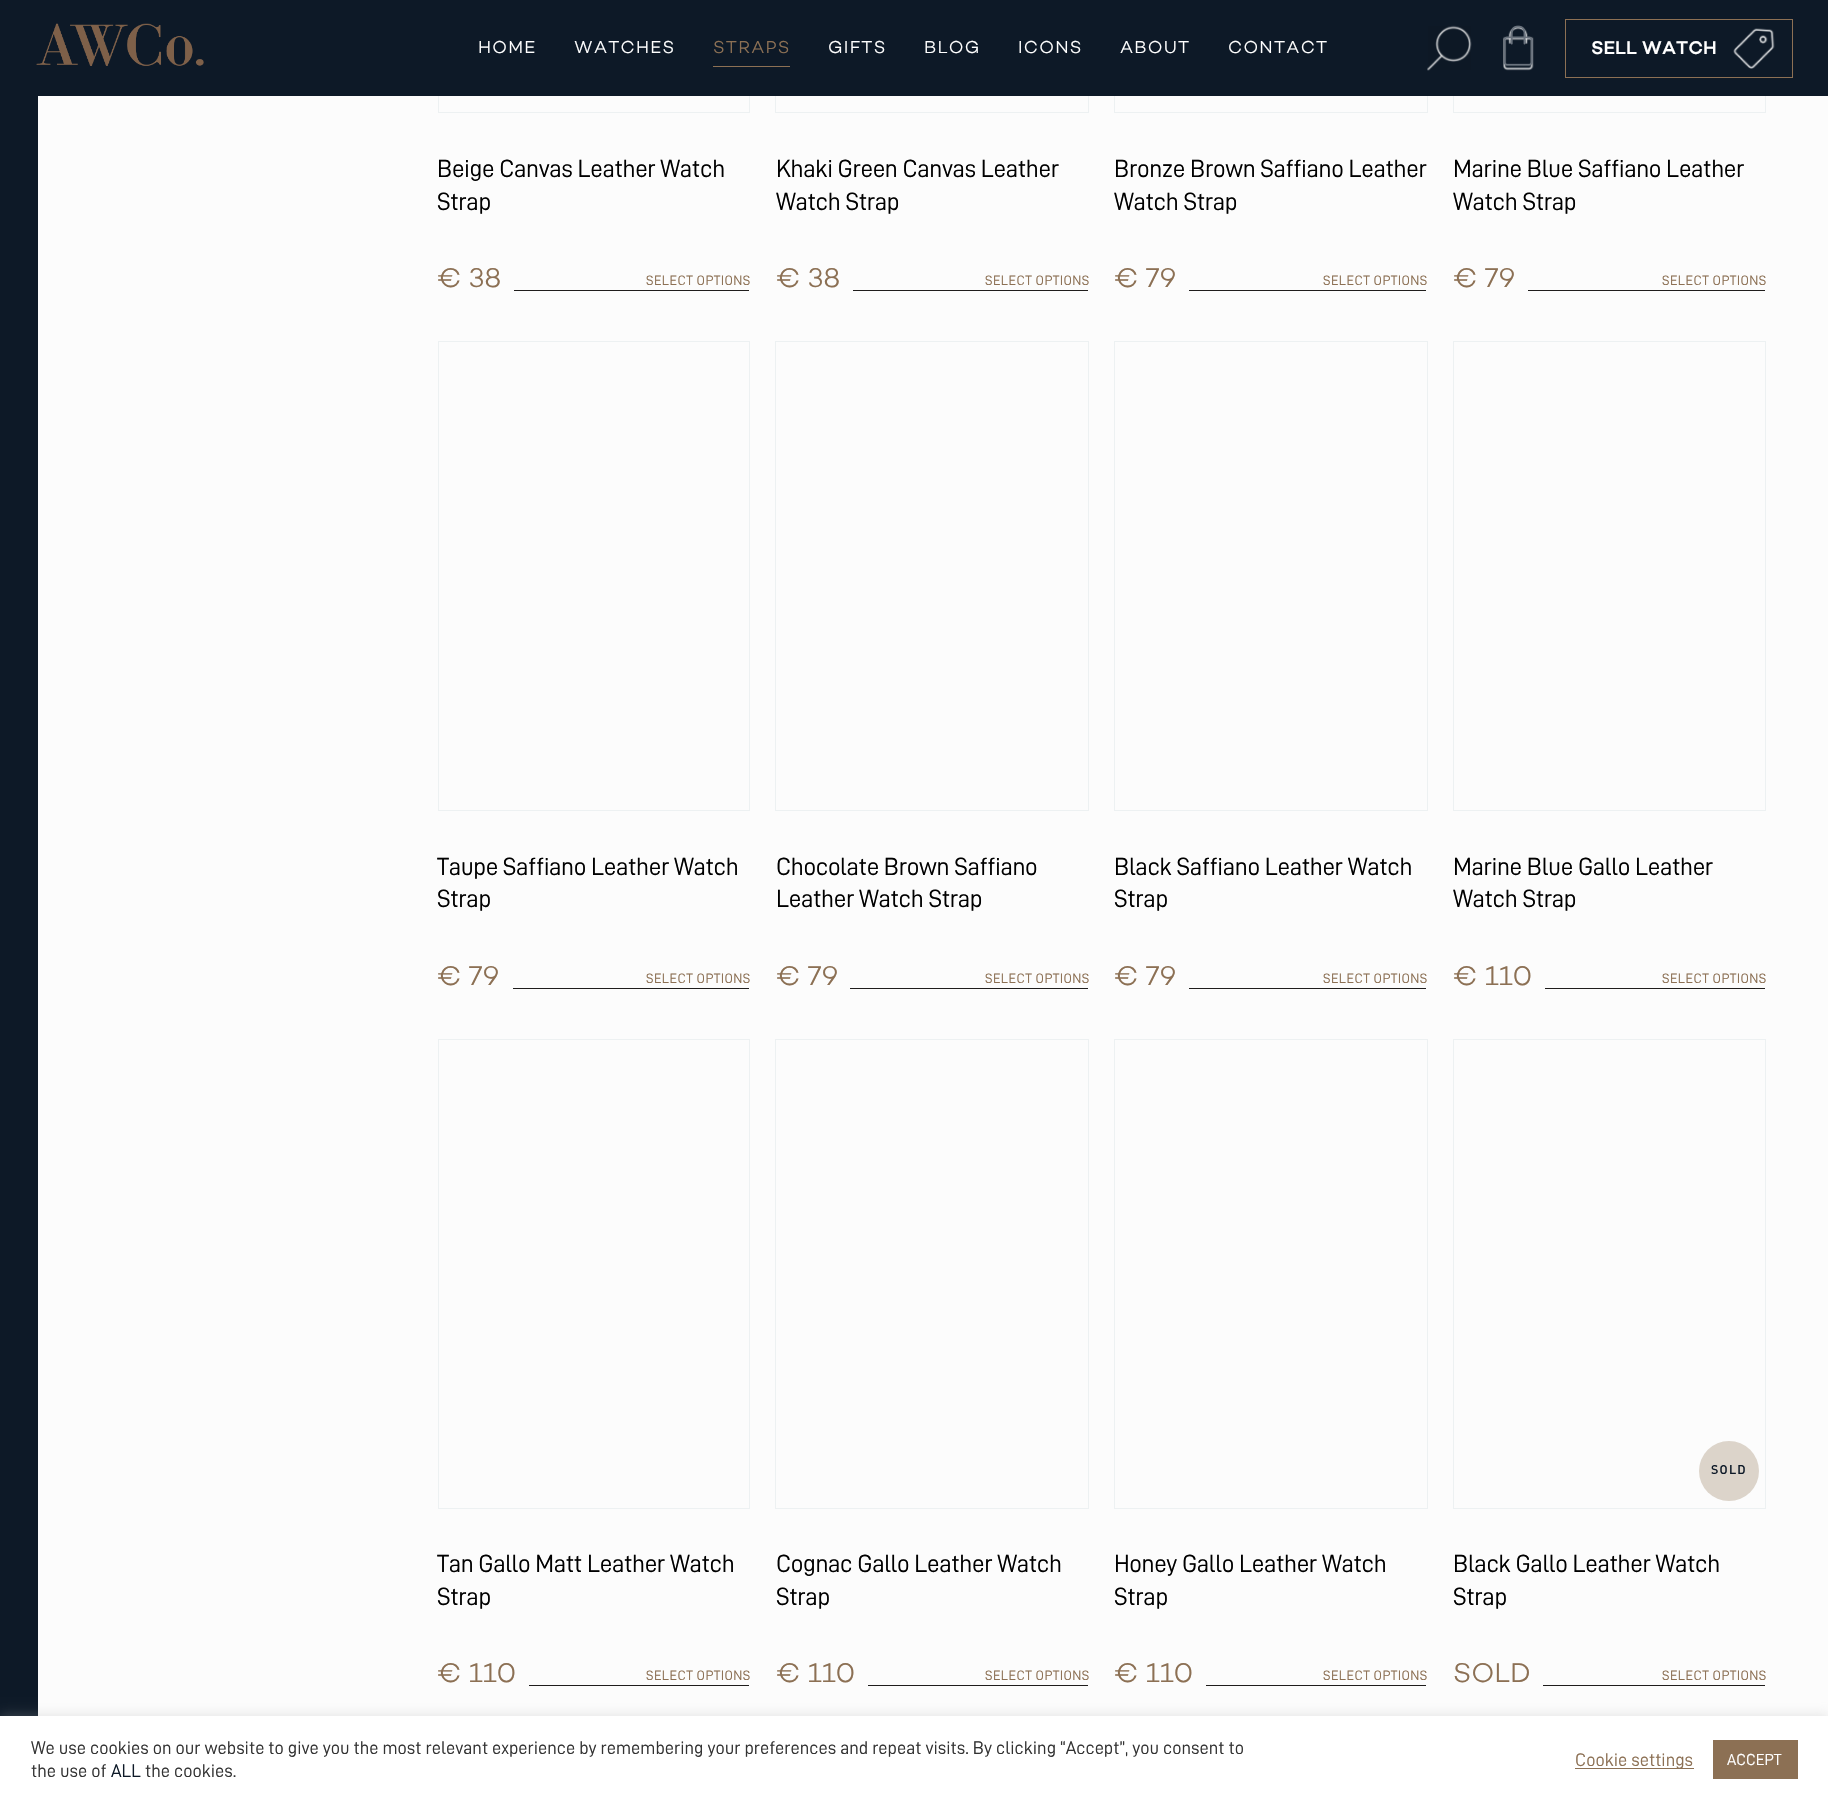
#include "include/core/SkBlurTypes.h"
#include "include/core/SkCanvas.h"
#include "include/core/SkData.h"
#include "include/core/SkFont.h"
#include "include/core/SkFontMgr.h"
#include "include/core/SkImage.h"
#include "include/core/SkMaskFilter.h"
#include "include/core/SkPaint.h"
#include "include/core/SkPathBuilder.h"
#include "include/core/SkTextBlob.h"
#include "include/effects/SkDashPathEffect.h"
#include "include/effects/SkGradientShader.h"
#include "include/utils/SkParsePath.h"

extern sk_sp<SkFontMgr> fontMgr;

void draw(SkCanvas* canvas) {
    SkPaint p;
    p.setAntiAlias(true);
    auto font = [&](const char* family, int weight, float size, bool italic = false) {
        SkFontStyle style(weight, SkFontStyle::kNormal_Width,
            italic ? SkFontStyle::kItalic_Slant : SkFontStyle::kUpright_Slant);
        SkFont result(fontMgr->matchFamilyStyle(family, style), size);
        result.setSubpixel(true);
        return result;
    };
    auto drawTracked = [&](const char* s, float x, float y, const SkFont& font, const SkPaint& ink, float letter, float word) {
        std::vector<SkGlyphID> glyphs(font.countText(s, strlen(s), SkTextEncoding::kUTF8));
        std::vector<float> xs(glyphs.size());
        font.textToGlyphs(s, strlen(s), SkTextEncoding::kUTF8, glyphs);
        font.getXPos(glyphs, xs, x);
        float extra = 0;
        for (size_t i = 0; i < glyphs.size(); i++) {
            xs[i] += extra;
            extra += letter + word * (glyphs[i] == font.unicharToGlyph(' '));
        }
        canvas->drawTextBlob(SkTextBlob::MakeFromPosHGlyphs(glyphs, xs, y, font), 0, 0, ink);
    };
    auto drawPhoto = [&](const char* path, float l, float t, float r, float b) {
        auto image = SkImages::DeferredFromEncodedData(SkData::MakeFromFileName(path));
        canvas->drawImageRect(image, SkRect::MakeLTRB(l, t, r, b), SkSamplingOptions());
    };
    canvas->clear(0xFFFCFCFC);
    p.setStyle(SkPaint::kStroke_Style);
    p.setStrokeWidth(1);
    p.setColor(0xFFEDF1F2);
    canvas->drawRect(SkRect::MakeLTRB(438.5f, -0.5f, 749.5f, 112.5f), p);
    canvas->drawRect(SkRect::MakeLTRB(775.5f, -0.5f, 1088.5f, 112.5f), p);
    canvas->drawRect(SkRect::MakeLTRB(1114.5f, -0.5f, 1427.5f, 112.5f), p);
    canvas->drawRect(SkRect::MakeLTRB(1453.5f, -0.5f, 1765.5f, 112.5f), p);
    p.setStyle(SkPaint::kFill_Style);
    p.setColor(0xFF0D1927);
    canvas->drawRect(SkRect::MakeLTRB(0, 0, 1828, 96), p);
    drawPhoto("media/1.png", 36, 23, 204, 66);
    auto font1 = font("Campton", 300, 17.5f);
    p.setColor(0xFFFFFFFF);
    drawTracked("HOME", 478, 53, font1, p, 1.25f, 0);
    drawTracked("WATCHES", 574, 53, font1, p, 1.25f, 0);
    p.setColor(0xFF8C7054);
    drawTracked("STRAPS", 713, 53, font1, p, 1.25f, 0);
    canvas->drawRect(SkRect::MakeLTRB(713, 66, 790, 67), p);
    p.setColor(0xFFFFFFFF);
    {
        const struct { const char* s; float x, y; } items[] = {
            {"GIFTS", 828, 53},
            {"BLOG", 924, 53},
            {"ICONS", 1018, 53},
            {"ABOUT", 1120, 53},
            {"CONTACT", 1228, 53},
        };
        for (auto [s, x, y] : items) {
            drawTracked(s, x, y, font1, p, 1.25f, 0);
        }
    }
    drawPhoto("media/2.png", 1427, 25, 1472, 71);
    p.setColor(0x0D000000);
    canvas->drawRect(SkRect::MakeLTRB(1428, 26, 1471, 70), p);
    drawPhoto("media/3.png", 1503, 26, 1534, 71);
    drawPhoto("media/4.png", 1504, 25, 1533, 66);
    drawPhoto("media/5.png", 1733, 28, 1775, 69);
    p.setStyle(SkPaint::kStroke_Style);
    p.setColor(0xFF8C7054);
    canvas->drawRect(SkRect::MakeLTRB(1565.5f, 19.5f, 1792.5f, 77.5f), p);
    auto font2 = font("Campton", 500, 18.75f);
    p.setStyle(SkPaint::kFill_Style);
    p.setColor(0xFFFFFFFF);
    canvas->drawString("SELL WATCH", 1591, 54, font2, p);
    p.setColor(0xFF0D1927);
    canvas->drawRect(SkRect::MakeLTRB(0, 96, 38, 1716), p);
    auto font3 = font("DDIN", 400, 25);
    p.setColor(0xFF000000);
    drawTracked("Beige Canvas Leather Watch", 437, 177, font3, p, -0.4f, 0);
    drawTracked("Strap", 437, 210, font3, p, -0.4f, 0);
    auto font4 = font("Campton", 300, 27.5f);
    p.setColor(0xFF8C7054);
    canvas->drawString("€ 38", 437, 287, font4, p);
    p.setColor(0xFF1F1D1C);
    canvas->drawRect(SkRect::MakeLTRB(514, 290, 749, 291), p);
    auto font5 = font("DDIN", 400, 13.75f);
    p.setColor(0xFF8C7054);
    drawTracked("SELECT OPTIONS", 646, 285, font5, p, 0.4f, 0);
    p.setColor(0xFF000000);
    drawTracked("Khaki Green Canvas Leather", 776, 177, font3, p, -0.4f, 0);
    drawTracked("Watch Strap", 776, 210, font3, p, -0.4f, 0);
    p.setColor(0xFF8C7054);
    canvas->drawString("€ 38", 776, 287, font4, p);
    p.setColor(0xFF1F1D1C);
    canvas->drawRect(SkRect::MakeLTRB(853, 290, 1088, 291), p);
    p.setColor(0xFF8C7054);
    drawTracked("SELECT OPTIONS", 985, 285, font5, p, 0.4f, 0);
    p.setColor(0xFF000000);
    drawTracked("Bronze Brown Saffiano Leather", 1114, 177, font3, p, -0.4f, 0);
    drawTracked("Watch Strap", 1114, 210, font3, p, -0.4f, 0);
    p.setColor(0xFF8C7054);
    canvas->drawString("€ 79", 1114, 287, font4, p);
    p.setColor(0xFF1F1D1C);
    canvas->drawRect(SkRect::MakeLTRB(1189, 290, 1426, 291), p);
    p.setColor(0xFF8C7054);
    drawTracked("SELECT OPTIONS", 1323, 285, font5, p, 0.4f, 0);
    p.setColor(0xFF000000);
    drawTracked("Marine Blue Saffiano Leather", 1453, 177, font3, p, -0.4f, 0);
    drawTracked("Watch Strap", 1453, 210, font3, p, -0.4f, 0);
    p.setColor(0xFF8C7054);
    canvas->drawString("€ 79", 1453, 287, font4, p);
    p.setColor(0xFF1F1D1C);
    canvas->drawRect(SkRect::MakeLTRB(1528, 290, 1765, 291), p);
    p.setColor(0xFF8C7054);
    drawTracked("SELECT OPTIONS", 1662, 285, font5, p, 0.4f, 0);
    p.setStyle(SkPaint::kStroke_Style);
    p.setColor(0xFFEDF1F2);
    canvas->drawRect(SkRect::MakeLTRB(438.5f, 341.5f, 749.5f, 810.5f), p);
    p.setStyle(SkPaint::kFill_Style);
    p.setColor(0xFF000000);
    drawTracked("Taupe Saffiano Leather Watch", 437, 875, font3, p, -0.4f, 0);
    drawTracked("Strap", 437, 907, font3, p, -0.4f, 0);
    p.setColor(0xFF8C7054);
    canvas->drawString("€ 79", 437, 985, font4, p);
    p.setColor(0xFF1F1D1C);
    canvas->drawRect(SkRect::MakeLTRB(513, 988, 749, 989), p);
    p.setColor(0xFF8C7054);
    drawTracked("SELECT OPTIONS", 646, 983, font5, p, 0.4f, 0);
    p.setStyle(SkPaint::kStroke_Style);
    p.setColor(0xFFEDF1F2);
    canvas->drawRect(SkRect::MakeLTRB(775.5f, 341.5f, 1088.5f, 810.5f), p);
    p.setStyle(SkPaint::kFill_Style);
    p.setColor(0xFF000000);
    drawTracked("Chocolate Brown Saffiano", 776, 875, font3, p, -0.4f, 0);
    drawTracked("Leather Watch Strap", 776, 907, font3, p, -0.4f, 0);
    p.setColor(0xFF8C7054);
    canvas->drawString("€ 79", 776, 985, font4, p);
    p.setColor(0xFF1F1D1C);
    canvas->drawRect(SkRect::MakeLTRB(850, 988, 1088, 989), p);
    p.setColor(0xFF8C7054);
    drawTracked("SELECT OPTIONS", 985, 983, font5, p, 0.4f, 0);
    p.setStyle(SkPaint::kStroke_Style);
    p.setColor(0xFFEDF1F2);
    canvas->drawRect(SkRect::MakeLTRB(1114.5f, 341.5f, 1427.5f, 810.5f), p);
    p.setStyle(SkPaint::kFill_Style);
    p.setColor(0xFF000000);
    drawTracked("Black Saffiano Leather Watch", 1114, 875, font3, p, -0.4f, 0);
    drawTracked("Strap", 1114, 907, font3, p, -0.4f, 0);
    p.setColor(0xFF8C7054);
    canvas->drawString("€ 79", 1114, 985, font4, p);
    p.setColor(0xFF1F1D1C);
    canvas->drawRect(SkRect::MakeLTRB(1189, 988, 1426, 989), p);
    p.setColor(0xFF8C7054);
    drawTracked("SELECT OPTIONS", 1323, 983, font5, p, 0.4f, 0);
    p.setStyle(SkPaint::kStroke_Style);
    p.setColor(0xFFEDF1F2);
    canvas->drawRect(SkRect::MakeLTRB(1453.5f, 341.5f, 1765.5f, 810.5f), p);
    p.setStyle(SkPaint::kFill_Style);
    p.setColor(0xFF000000);
    drawTracked("Marine Blue Gallo Leather", 1453, 875, font3, p, -0.4f, 0);
    drawTracked("Watch Strap", 1453, 907, font3, p, -0.4f, 0);
    p.setColor(0xFF8C7054);
    canvas->drawString("€ 110", 1453, 985, font4, p);
    p.setColor(0xFF1F1D1C);
    canvas->drawRect(SkRect::MakeLTRB(1545, 988, 1765, 989), p);
    p.setColor(0xFF8C7054);
    drawTracked("SELECT OPTIONS", 1662, 983, font5, p, 0.4f, 0);
    p.setStyle(SkPaint::kStroke_Style);
    p.setColor(0xFFEDF1F2);
    canvas->drawRect(SkRect::MakeLTRB(438.5f, 1039.5f, 749.5f, 1508.5f), p);
    p.setStyle(SkPaint::kFill_Style);
    p.setColor(0xFF000000);
    drawTracked("Tan Gallo Matt Leather Watch", 437, 1572, font3, p, -0.4f, 0);
    drawTracked("Strap", 437, 1605, font3, p, -0.4f, 0);
    p.setColor(0xFF8C7054);
    canvas->drawString("€ 110", 437, 1682, font4, p);
    p.setColor(0xFF1F1D1C);
    canvas->drawRect(SkRect::MakeLTRB(529, 1685, 749, 1686), p);
    p.setColor(0xFF8C7054);
    drawTracked("SELECT OPTIONS", 646, 1680, font5, p, 0.4f, 0);
    p.setStyle(SkPaint::kStroke_Style);
    p.setColor(0xFFEDF1F2);
    canvas->drawRect(SkRect::MakeLTRB(775.5f, 1039.5f, 1088.5f, 1508.5f), p);
    p.setStyle(SkPaint::kFill_Style);
    p.setColor(0xFF000000);
    drawTracked("Cognac Gallo Leather Watch", 776, 1572, font3, p, -0.4f, 0);
    drawTracked("Strap", 776, 1605, font3, p, -0.4f, 0);
    p.setColor(0xFF8C7054);
    canvas->drawString("€ 110", 776, 1682, font4, p);
    p.setColor(0xFF1F1D1C);
    canvas->drawRect(SkRect::MakeLTRB(868, 1685, 1088, 1686), p);
    p.setColor(0xFF8C7054);
    drawTracked("SELECT OPTIONS", 985, 1680, font5, p, 0.4f, 0);
    p.setStyle(SkPaint::kStroke_Style);
    p.setColor(0xFFEDF1F2);
    canvas->drawRect(SkRect::MakeLTRB(1114.5f, 1039.5f, 1427.5f, 1508.5f), p);
    p.setStyle(SkPaint::kFill_Style);
    p.setColor(0xFF000000);
    drawTracked("Honey Gallo Leather Watch", 1114, 1572, font3, p, -0.4f, 0);
    drawTracked("Strap", 1114, 1605, font3, p, -0.4f, 0);
    p.setColor(0xFF8C7054);
    canvas->drawString("€ 110", 1114, 1682, font4, p);
    p.setColor(0xFF1F1D1C);
    canvas->drawRect(SkRect::MakeLTRB(1206, 1685, 1426, 1686), p);
    p.setColor(0xFF8C7054);
    drawTracked("SELECT OPTIONS", 1323, 1680, font5, p, 0.4f, 0);
    p.setStyle(SkPaint::kStroke_Style);
    p.setColor(0xFFEDF1F2);
    canvas->drawRect(SkRect::MakeLTRB(1453.5f, 1039.5f, 1765.5f, 1508.5f), p);
    p.setStyle(SkPaint::kFill_Style);
    p.setColor(0xFFDCD4CA);
    canvas->drawCircle(1729, 1471, 30, p);
    auto font6 = font("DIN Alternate", 500, 12.5f);
    p.setColor(0xFF0D1927);
    drawTracked("SOLD", 1711, 1474, font6, p, 1.25f, 0);
    p.setColor(0xFF000000);
    drawTracked("Black Gallo Leather Watch", 1453, 1572, font3, p, -0.4f, 0);
    drawTracked("Strap", 1453, 1605, font3, p, -0.4f, 0);
    p.setColor(0xFF8C7054);
    canvas->drawString("SOLD", 1453, 1682, font4, p);
    p.setColor(0xFF1F1D1C);
    canvas->drawRect(SkRect::MakeLTRB(1543, 1685, 1765, 1686), p);
    p.setColor(0xFF8C7054);
    drawTracked("SELECT OPTIONS", 1662, 1680, font5, p, 0.4f, 0);
    p.setColor(0x4DACABAB);
    p.setMaskFilter(SkMaskFilter::MakeBlur(kNormal_SkBlurStyle, 6));
    canvas->drawRect(SkRect::MakeLTRB(0, 1715, 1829, 1801), p);
    p.setMaskFilter(nullptr);
    p.setColor(0xFFFFFFFF);
    canvas->drawRect(SkRect::MakeLTRB(0, 1716, 1828, 1802), p);
    auto font7 = font("DDIN", 400, 18.33f);
    p.setColor(0xFF333333);
    canvas->drawString("We use cookies on our website to give you the most relevant experience by remembering your preferences and repeat visits. By clicking “Accept”, you consent to", 31, 1754, font7, p);
    canvas->drawString("the use of", 31, 1777, font7, p);
    p.setColor(0xFF0D1927);
    canvas->drawString("ALL", 111, 1777, font7, p);
    p.setColor(0xFF333333);
    canvas->drawString("the cookies.", 145, 1777, font7, p);
    p.setColor(0xFF8C7054);
    canvas->drawRect(SkRect::MakeLTRB(1575, 1768, 1694, 1769), p);
    canvas->drawString("Cookie settings", 1575, 1766, font7, p);
    canvas->drawRect(SkRect::MakeLTRB(1713, 1740, 1798, 1779), p);
    auto font8 = font("DDIN", 400, 16);
    p.setColor(0xFFFFFFFF);
    canvas->drawString("ACCEPT", 1727, 1765, font8, p);
}
